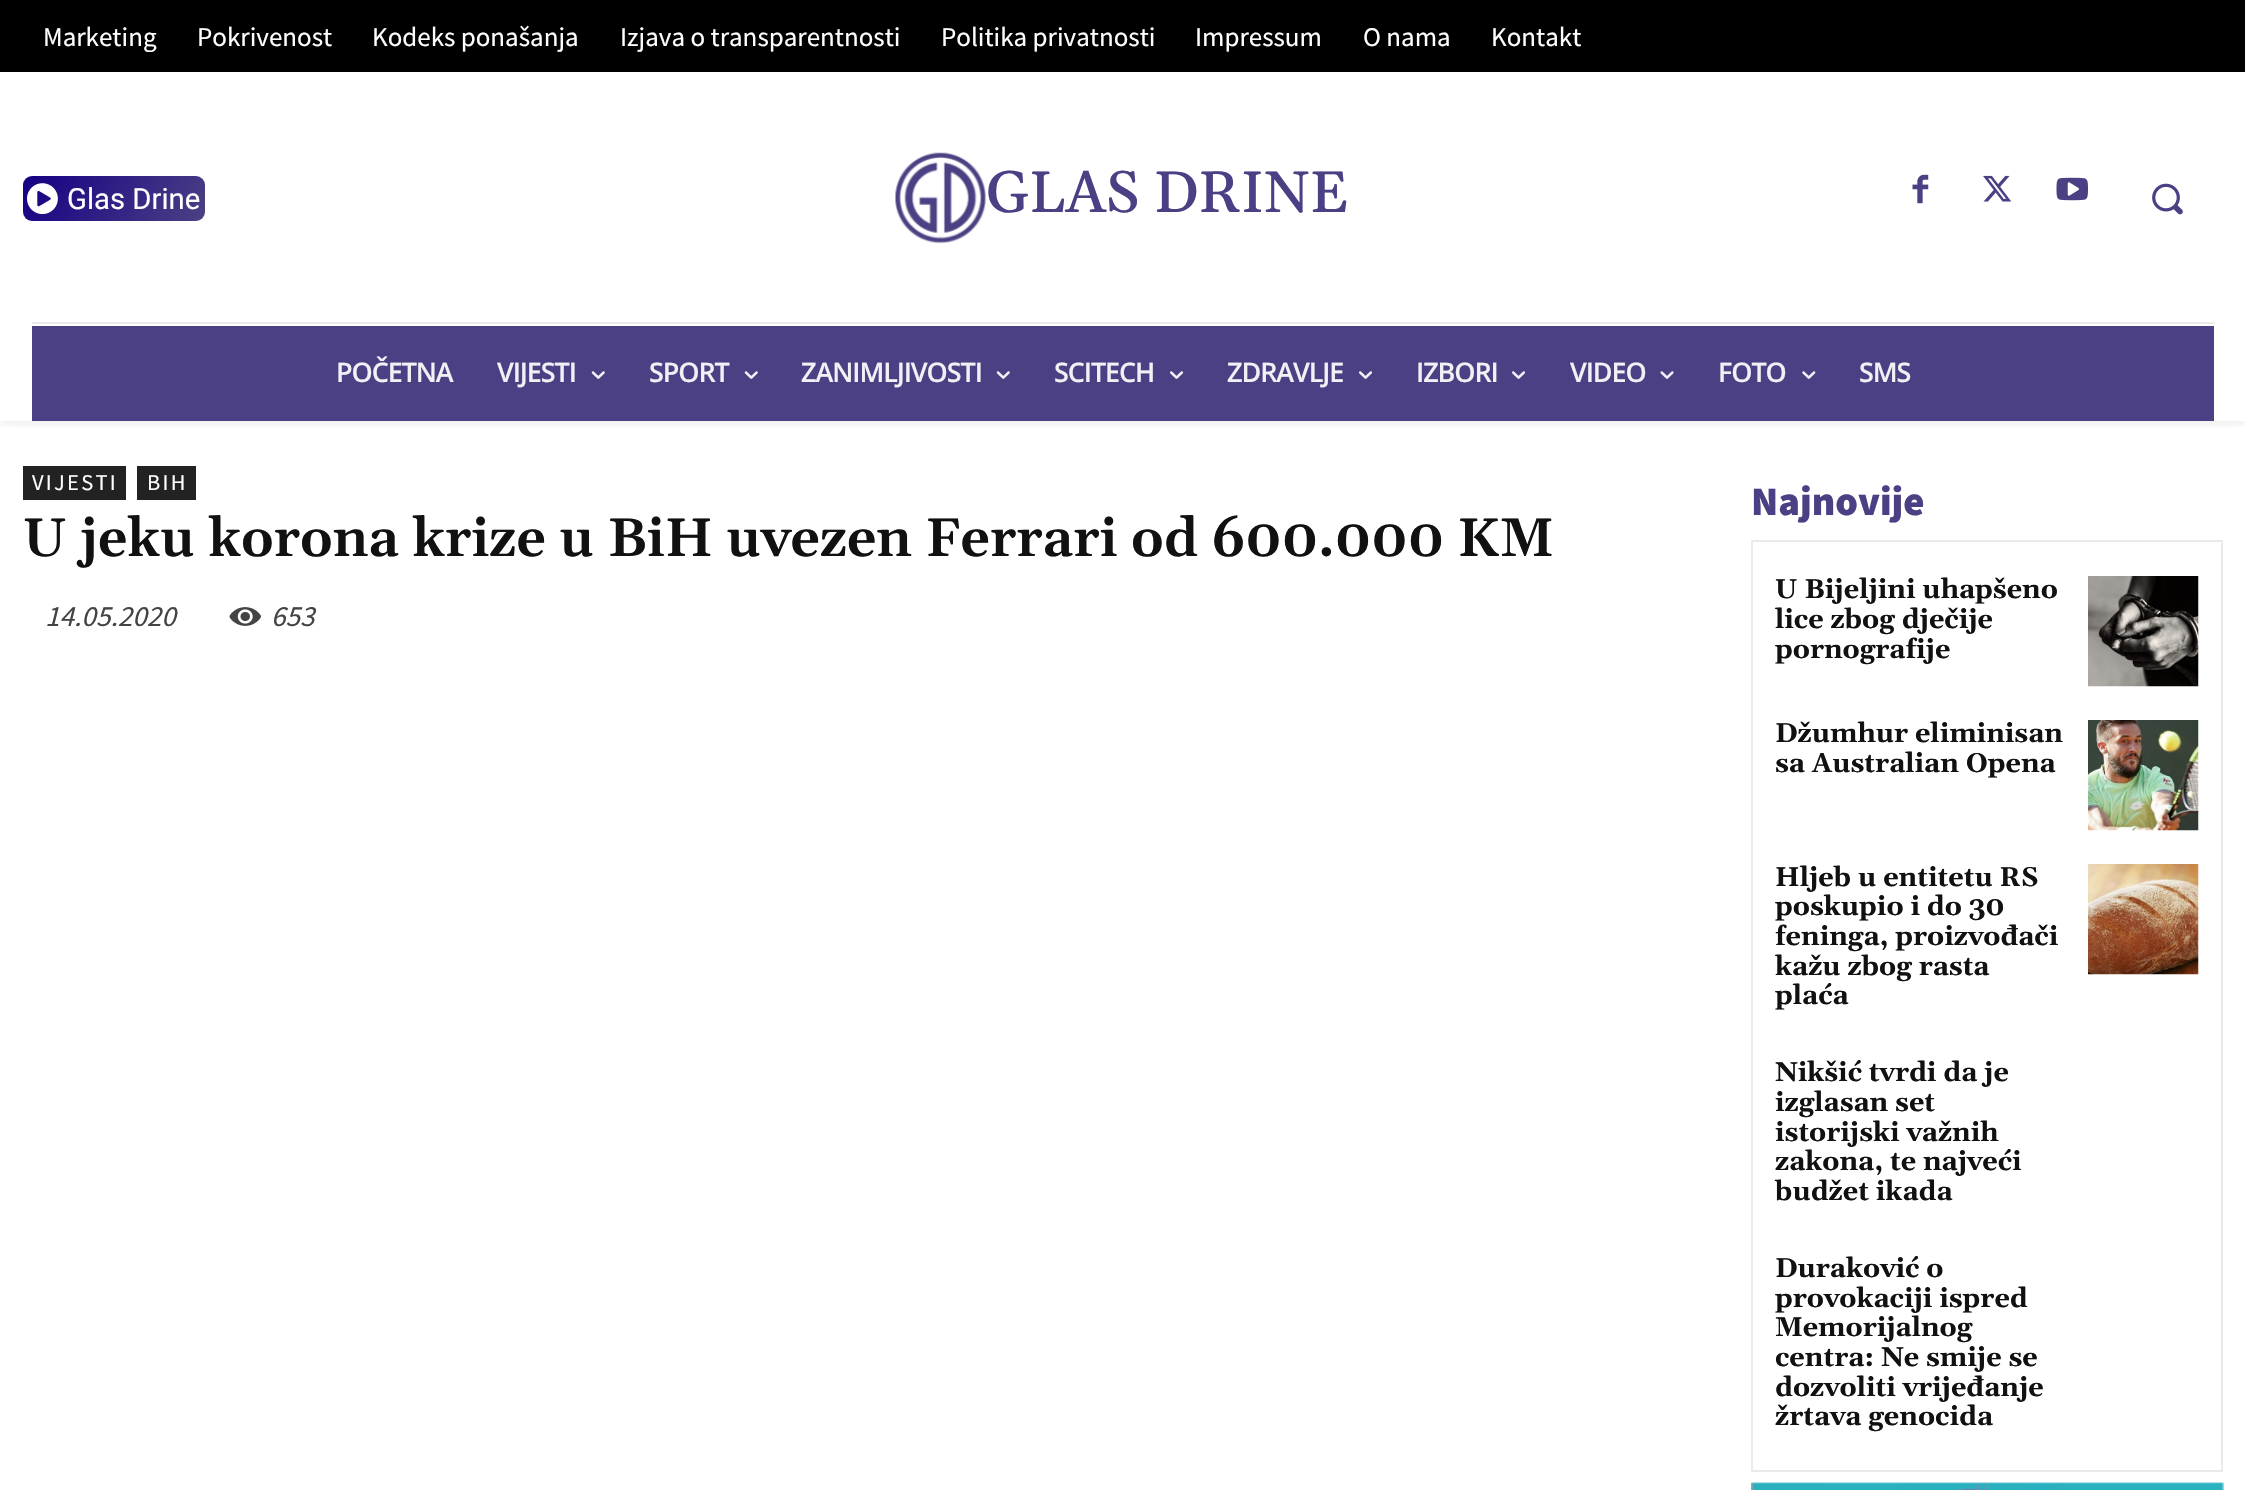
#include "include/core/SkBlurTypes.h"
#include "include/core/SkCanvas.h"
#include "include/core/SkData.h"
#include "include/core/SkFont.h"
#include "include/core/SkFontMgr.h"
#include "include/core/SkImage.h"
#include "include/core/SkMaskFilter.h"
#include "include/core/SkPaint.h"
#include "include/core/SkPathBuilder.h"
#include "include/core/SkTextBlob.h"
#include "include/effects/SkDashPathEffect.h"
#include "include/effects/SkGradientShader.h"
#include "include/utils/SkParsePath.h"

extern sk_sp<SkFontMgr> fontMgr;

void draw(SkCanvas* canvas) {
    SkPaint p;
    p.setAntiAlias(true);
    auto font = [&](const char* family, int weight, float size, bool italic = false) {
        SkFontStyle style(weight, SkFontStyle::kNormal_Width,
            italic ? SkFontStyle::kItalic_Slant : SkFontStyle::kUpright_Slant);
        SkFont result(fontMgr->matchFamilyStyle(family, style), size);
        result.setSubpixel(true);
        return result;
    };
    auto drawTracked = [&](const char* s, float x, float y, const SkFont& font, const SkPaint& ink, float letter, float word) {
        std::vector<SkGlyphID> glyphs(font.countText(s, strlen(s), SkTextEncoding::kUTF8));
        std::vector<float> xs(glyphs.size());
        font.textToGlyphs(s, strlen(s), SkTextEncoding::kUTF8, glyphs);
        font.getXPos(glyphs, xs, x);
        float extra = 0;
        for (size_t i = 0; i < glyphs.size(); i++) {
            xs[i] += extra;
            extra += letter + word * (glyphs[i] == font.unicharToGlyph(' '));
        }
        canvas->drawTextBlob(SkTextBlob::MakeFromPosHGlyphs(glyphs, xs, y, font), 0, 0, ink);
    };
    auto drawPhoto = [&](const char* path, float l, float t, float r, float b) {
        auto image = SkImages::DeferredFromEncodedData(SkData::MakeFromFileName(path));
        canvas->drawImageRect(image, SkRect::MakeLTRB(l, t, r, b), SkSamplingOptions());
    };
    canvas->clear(0xFFFFFFFF);
    p.setColor(0xFF000000);
    canvas->drawRect(SkRect::MakeLTRB(0, 0, 2245, 72), p);
    auto font1 = font("Source Sans Pro", 400, 27);
    p.setColor(0xFFFFFFFF);
    {
        const struct { const char* s; float x, y; } items[] = {
            {"Marketing", 43, 46},
            {"Pokrivenost", 197, 46},
            {"Kodeks ponašanja", 372, 46},
            {"Izjava o transparentnosti", 620, 46},
            {"Politika privatnosti", 941, 46},
            {"Impressum", 1195, 46},
            {"O nama", 1363, 46},
            {"Kontakt", 1491, 46},
        };
        for (auto [s, x, y] : items) {
            canvas->drawString(s, x, y, font1, p);
        }
    }
    {
        const SkColor colors[] = {0xFF4C4084, 0xFF160084};
        const float stops[] = {0, 1};
        const SkPoint ends[] = {{192, 243}, {36, 153}};
        p.setShader(SkGradientShader::MakeLinear(ends, colors, stops, 2, SkTileMode::kClamp));
        p.setAlpha(255);
    }
    canvas->drawRoundRect(SkRect::MakeLTRB(23, 176, 205, 221), 9, 9, p);
    drawPhoto("media/1.png", 27, 183, 58, 215);
    auto font2 = font("Roboto", 400, 29.25f);
    p.setShader(nullptr);
    p.setColor(0xFFFFFFFF);
    canvas->drawString("Glas Drine", 67, 209, font2, p);
    drawPhoto("media/2.png", 895, 152, 986, 244);
    auto font3 = font("Gelasio", 500, 58.5f);
    p.setColor(0xFF4C4084);
    canvas->drawString("GLAS DRINE", 986, 212, font3, p);
    drawPhoto("media/3.png", 1912, 174, 1929, 204);
    drawPhoto("media/4.png", 1983, 175, 2012, 202);
    drawPhoto("media/5.png", 2056, 177, 2088, 201);
    drawPhoto("media/6.png", 2152, 183, 2183, 215);
    p.setColor(0xFFEAEAEA);
    canvas->drawRect(SkRect::MakeLTRB(32, 322, 2214, 324), p);
    canvas->save();
    canvas->clipRect(SkRect::MakeLTRB(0, 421, 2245, 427));
    p.setColor(0x0F000000);
    p.setMaskFilter(SkMaskFilter::MakeBlur(kNormal_SkBlurStyle, 4.5f));
    canvas->drawRect(SkRect::MakeLTRB(0, 259, 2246, 425), p);
    p.setMaskFilter(nullptr);
    canvas->restore();
    p.setColor(0xFF4C4084);
    canvas->drawRect(SkRect::MakeLTRB(32, 326, 2214, 421), p);
    auto font4 = font("Open Sans", 600, 27);
    p.setColor(0xFFF1F0F5);
    drawTracked("POČETNA", 336, 382, font4, p, -1.1f, 0);
    drawTracked("VIJESTI", 497, 382, font4, p, -1.1f, 0);
    drawPhoto("media/7.png", 591, 371, 605, 379);
    drawTracked("SPORT", 649, 382, font4, p, -1.1f, 0);
    drawPhoto("media/7.png", 744, 371, 758, 379);
    drawTracked("ZANIMLJIVOSTI", 801, 382, font4, p, -1.1f, 0);
    drawPhoto("media/7.png", 996, 371, 1010, 379);
    drawTracked("SCITECH", 1054, 382, font4, p, -1.1f, 0);
    drawPhoto("media/8.png", 1170, 371, 1183, 379);
    drawTracked("ZDRAVLJE", 1227, 382, font4, p, -1.1f, 0);
    drawPhoto("media/8.png", 1359, 371, 1372, 379);
    drawTracked("IZBORI", 1416, 382, font4, p, -1.1f, 0);
    drawPhoto("media/8.png", 1512, 371, 1525, 379);
    drawTracked("VIDEO", 1570, 382, font4, p, -1.1f, 0);
    drawPhoto("media/9.png", 1660, 371, 1674, 379);
    drawTracked("FOTO", 1718, 382, font4, p, -1.1f, 0);
    drawPhoto("media/10.png", 1802, 371, 1816, 379);
    drawTracked("SMS", 1859, 382, font4, p, -1.1f, 0);
    p.setColor(0xFF222222);
    canvas->drawRect(SkRect::MakeLTRB(23, 466, 126, 500), p);
    auto font5 = font("Source Sans Pro", 400, 22.5f);
    p.setColor(0xFFFFFFFF);
    drawTracked("VIJESTI", 32, 490, font5, p, 2.25f, 0);
    p.setColor(0xFF222222);
    canvas->drawRect(SkRect::MakeLTRB(137, 466, 196, 500), p);
    p.setColor(0xFFFFFFFF);
    drawTracked("BIH", 147, 490, font5, p, 2.25f, 0);
    auto font6 = font("Gelasio", 600, 54);
    p.setColor(0xFF111111);
    canvas->drawString("U jeku korona krize u BiH uvezen Ferrari od 600.000 KM", 23, 556, font6, p);
    auto font7 = font("Source Sans Pro", 400, 29.25f, true);
    p.setColor(0xFF444444);
    canvas->drawString("14.05.2020", 45, 626, font7, p);
    drawPhoto("media/11.png", 229, 607, 261, 626);
    canvas->drawString("653", 271, 626, font7, p);
    auto font8 = font("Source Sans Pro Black", 900, 40.5f);
    p.setColor(0xFF4C4084);
    canvas->drawString("Najnovije", 1751, 515, font8, p);
    p.setStyle(SkPaint::kStroke_Style);
    p.setStrokeWidth(2);
    p.setColor(0xFFEAEAEA);
    canvas->drawRect(SkRect::MakeLTRB(1752, 541, 2222, 1471), p);
    auto font9 = font("Gelasio", 700, 27);
    p.setStyle(SkPaint::kFill_Style);
    p.setColor(0xFF111111);
    {
        const struct { const char* s; float x, y; } items[] = {
            {"U Bijeljini uhapšeno", 1775, 598},
            {"lice zbog dječije", 1775, 628},
            {"pornografije", 1775, 658},
        };
        for (auto [s, x, y] : items) {
            canvas->drawString(s, x, y, font9, p);
        }
    }
    drawPhoto("media/12.png", 2088, 576, 2199, 687);
    canvas->drawString("Džumhur eliminisan", 1775, 742, font9, p);
    canvas->drawString("sa Australian Opena", 1775, 772, font9, p);
    drawPhoto("media/13.png", 2088, 720, 2199, 831);
    {
        const struct { const char* s; float x, y; } items[] = {
            {"Hljeb u entitetu RS", 1775, 886},
            {"poskupio i do 30", 1775, 915},
            {"feninga, proizvođači", 1775, 945},
            {"kažu zbog rasta", 1775, 975},
            {"plaća", 1775, 1004},
        };
        for (auto [s, x, y] : items) {
            canvas->drawString(s, x, y, font9, p);
        }
    }
    drawPhoto("media/14.png", 2088, 864, 2199, 975);
    {
        const struct { const char* s; float x, y; } items[] = {
            {"Nikšić tvrdi da je", 1775, 1081},
            {"izglasan set", 1775, 1111},
            {"istorijski važnih", 1775, 1141},
            {"zakona, te najveći", 1775, 1170},
            {"budžet ikada", 1775, 1200},
            {"Duraković o", 1775, 1277},
            {"provokaciji ispred", 1775, 1307},
            {"Memorijalnog", 1775, 1336},
            {"centra: Ne smije se", 1775, 1366},
            {"dozvoliti vrijeđanje", 1775, 1396},
            {"žrtava genocida", 1775, 1425},
        };
        for (auto [s, x, y] : items) {
            canvas->drawString(s, x, y, font9, p);
        }
    }
    drawPhoto("media/15.png", 1751, 1482, 2224, 1490);
}
